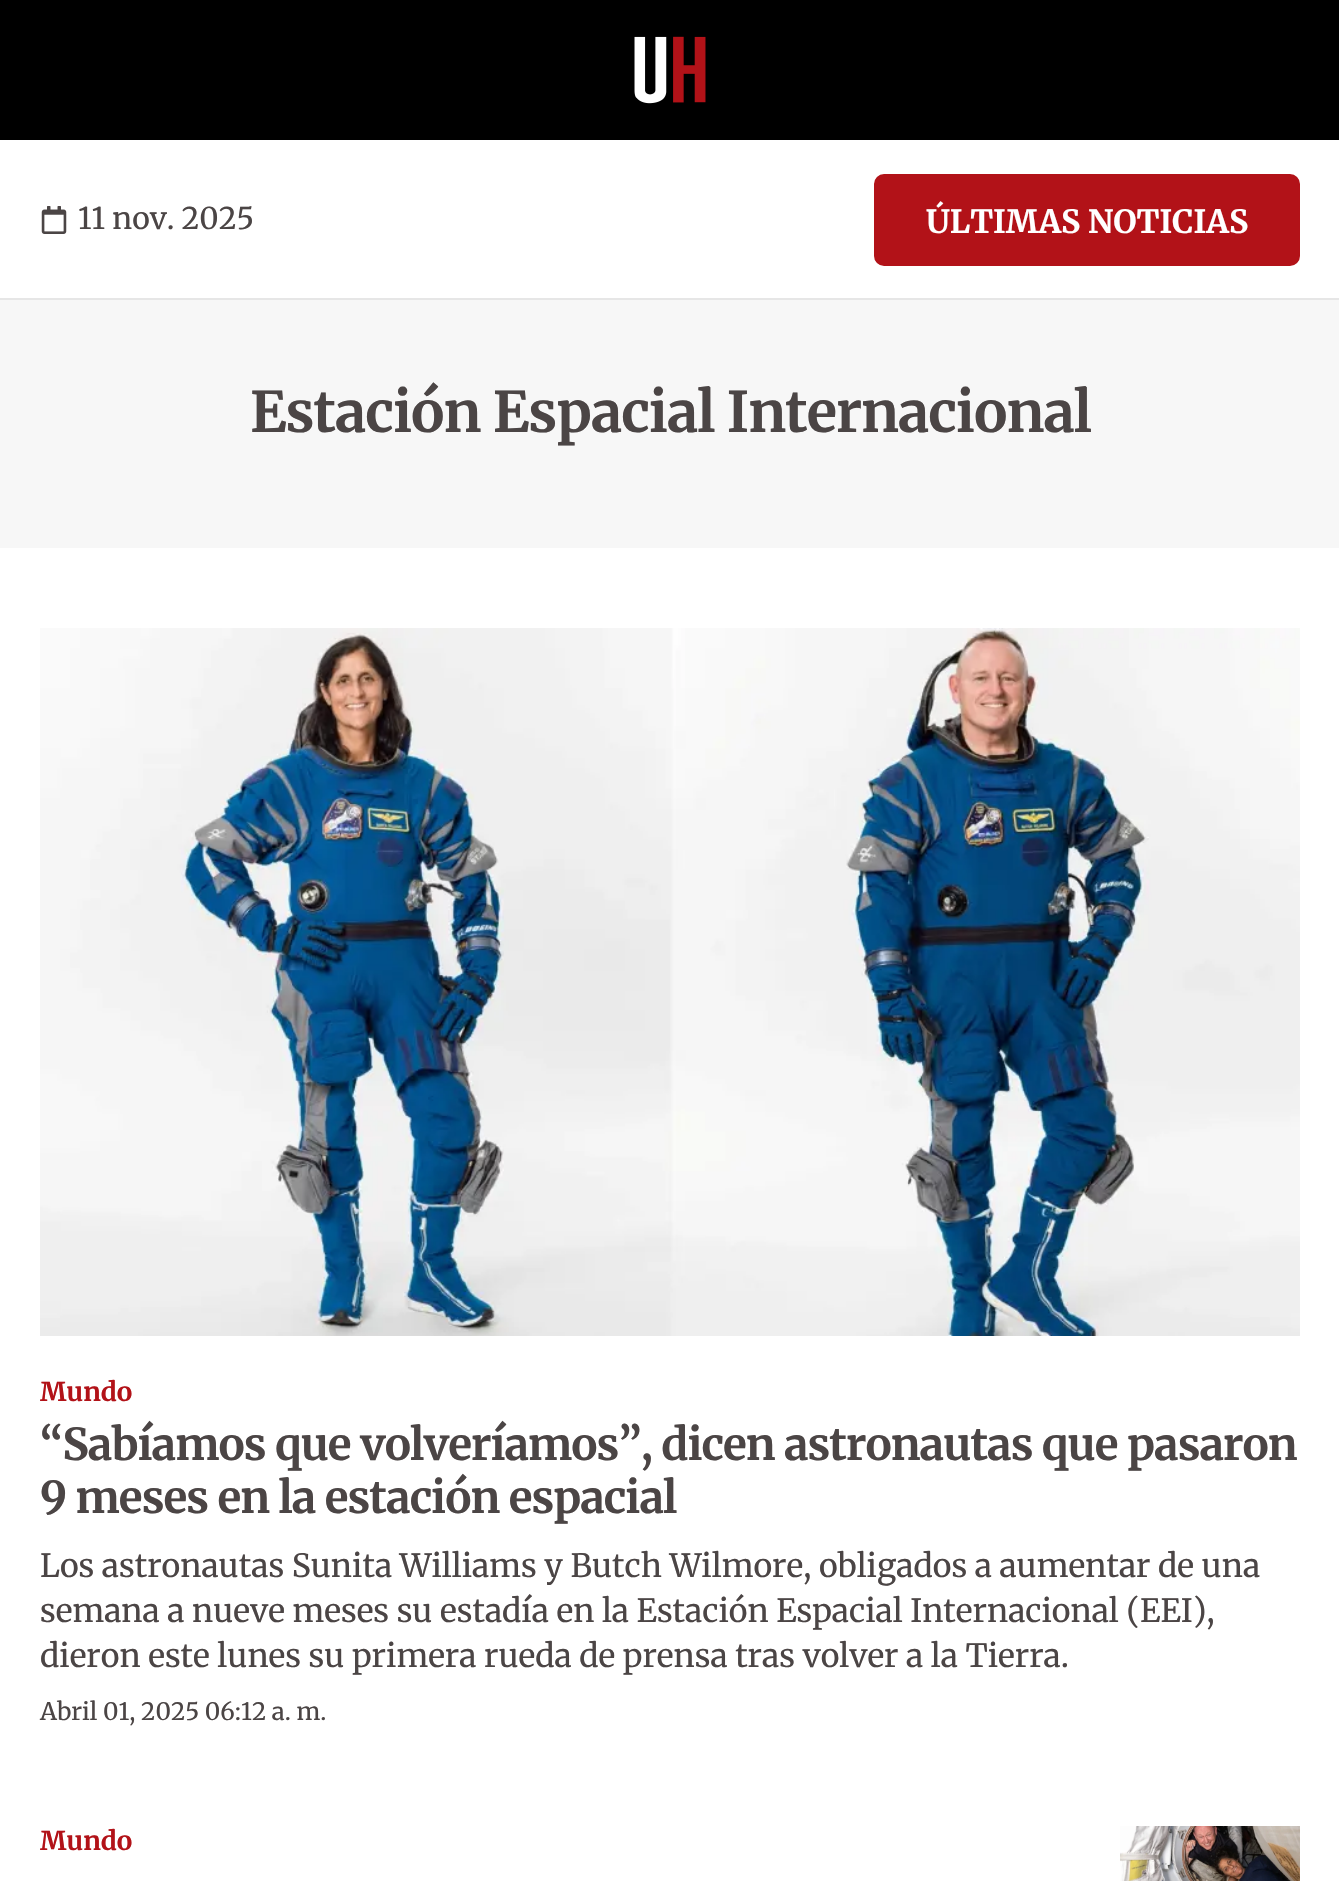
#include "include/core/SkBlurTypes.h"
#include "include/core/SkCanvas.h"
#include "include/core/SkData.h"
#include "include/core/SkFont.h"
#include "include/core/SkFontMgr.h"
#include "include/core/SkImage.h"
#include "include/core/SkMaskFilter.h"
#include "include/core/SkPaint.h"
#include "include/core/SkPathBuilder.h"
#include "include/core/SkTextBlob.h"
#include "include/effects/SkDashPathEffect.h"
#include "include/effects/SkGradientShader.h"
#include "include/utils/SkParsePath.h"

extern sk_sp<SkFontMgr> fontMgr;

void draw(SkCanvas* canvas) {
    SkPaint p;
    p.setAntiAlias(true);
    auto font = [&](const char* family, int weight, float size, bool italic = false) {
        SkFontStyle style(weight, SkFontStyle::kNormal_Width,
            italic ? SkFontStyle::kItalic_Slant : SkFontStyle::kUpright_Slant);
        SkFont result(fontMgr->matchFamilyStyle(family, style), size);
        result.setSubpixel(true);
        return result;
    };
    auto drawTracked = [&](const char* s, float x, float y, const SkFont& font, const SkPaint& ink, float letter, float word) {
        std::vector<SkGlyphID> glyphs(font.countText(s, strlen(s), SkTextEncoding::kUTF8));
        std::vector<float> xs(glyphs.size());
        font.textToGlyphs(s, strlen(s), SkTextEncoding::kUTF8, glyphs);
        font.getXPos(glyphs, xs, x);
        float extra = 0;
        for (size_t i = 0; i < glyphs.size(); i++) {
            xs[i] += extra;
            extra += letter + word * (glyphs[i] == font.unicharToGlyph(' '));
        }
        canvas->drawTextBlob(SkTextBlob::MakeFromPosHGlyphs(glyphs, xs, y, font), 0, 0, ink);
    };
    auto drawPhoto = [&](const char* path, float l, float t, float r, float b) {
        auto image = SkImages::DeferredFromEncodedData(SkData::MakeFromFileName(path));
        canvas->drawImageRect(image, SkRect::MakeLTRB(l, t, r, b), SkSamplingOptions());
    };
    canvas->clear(0xFFFFFFFF);
    p.setColor(0xFF000000);
    canvas->drawRect(SkRect::MakeLTRB(0, 0, 1339, 140), p);
    drawPhoto("media/1.png", 634, 36, 706, 104);
    p.setColor(0xFFE6E6E6);
    canvas->drawRect(SkRect::MakeLTRB(0, 298, 1339, 300), p);
    drawPhoto("media/2.png", 41, 206, 67, 234);
    auto font1 = font("Merriweather", 400, 30);
    p.setColor(0xFF4B4545);
    canvas->drawString("11 nov. 2025", 78, 229, font1, p);
    p.setColor(0xFFB21218);
    canvas->drawRoundRect(SkRect::MakeLTRB(875, 175, 1299, 265), 9, 9, p);
    p.setStyle(SkPaint::kStroke_Style);
    p.setStrokeWidth(2);
    canvas->drawRoundRect(SkRect::MakeLTRB(875, 175, 1299, 265), 9, 9, p);
    auto font2 = font("Merriweather", 700, 32);
    p.setStyle(SkPaint::kFill_Style);
    p.setColor(0xFFFFFFFF);
    canvas->drawString("ÚLTIMAS NOTICIAS", 926, 233, font2, p);
    p.setColor(0xFFF7F7F7);
    canvas->drawRect(SkRect::MakeLTRB(0, 300, 1339, 548), p);
    auto font3 = font("Merriweather", 700, 56);
    p.setColor(0xFF4B4545);
    drawTracked("Estación Espacial Internacional", 250, 432, font3, p, -1, 0);
    drawPhoto("media/3.png", 40, 628, 1300, 1336);
    auto font4 = font("Merriweather", 700, 26);
    p.setColor(0xFFB21218);
    canvas->drawString("Mundo", 40, 1401, font4, p);
    auto font5 = font("Merriweather", 700, 44);
    p.setColor(0xFF4B4545);
    drawTracked("“Sabíamos que volveríamos”, dicen astronautas que pasaron", 40, 1460, font5, p, -1, 0);
    drawTracked("9 meses en la estación espacial", 40, 1513, font5, p, -1, 0);
    auto font6 = font("Merriweather", 400, 32);
    {
        const struct { const char* s; float x, y; } items[] = {
            {"Los astronautas Sunita Williams y Butch Wilmore, obligados a aumentar de una", 40, 1577},
            {"semana a nueve meses su estadía en la Estación Espacial Internacional (EEI),", 40, 1622},
            {"dieron este lunes su primera rueda de prensa tras volver a la Tierra.", 40, 1667},
        };
        for (auto [s, x, y] : items) {
            canvas->drawString(s, x, y, font6, p);
        }
    }
    auto font7 = font("Merriweather", 400, 24);
    canvas->drawString("Abril 01, 2025 06:12 a. m.", 40, 1720, font7, p);
    p.setColor(0xFFB21218);
    canvas->drawString("Mundo", 40, 1850, font4, p);
    drawPhoto("media/4.png", 1120, 1826, 1300, 1881);
}
